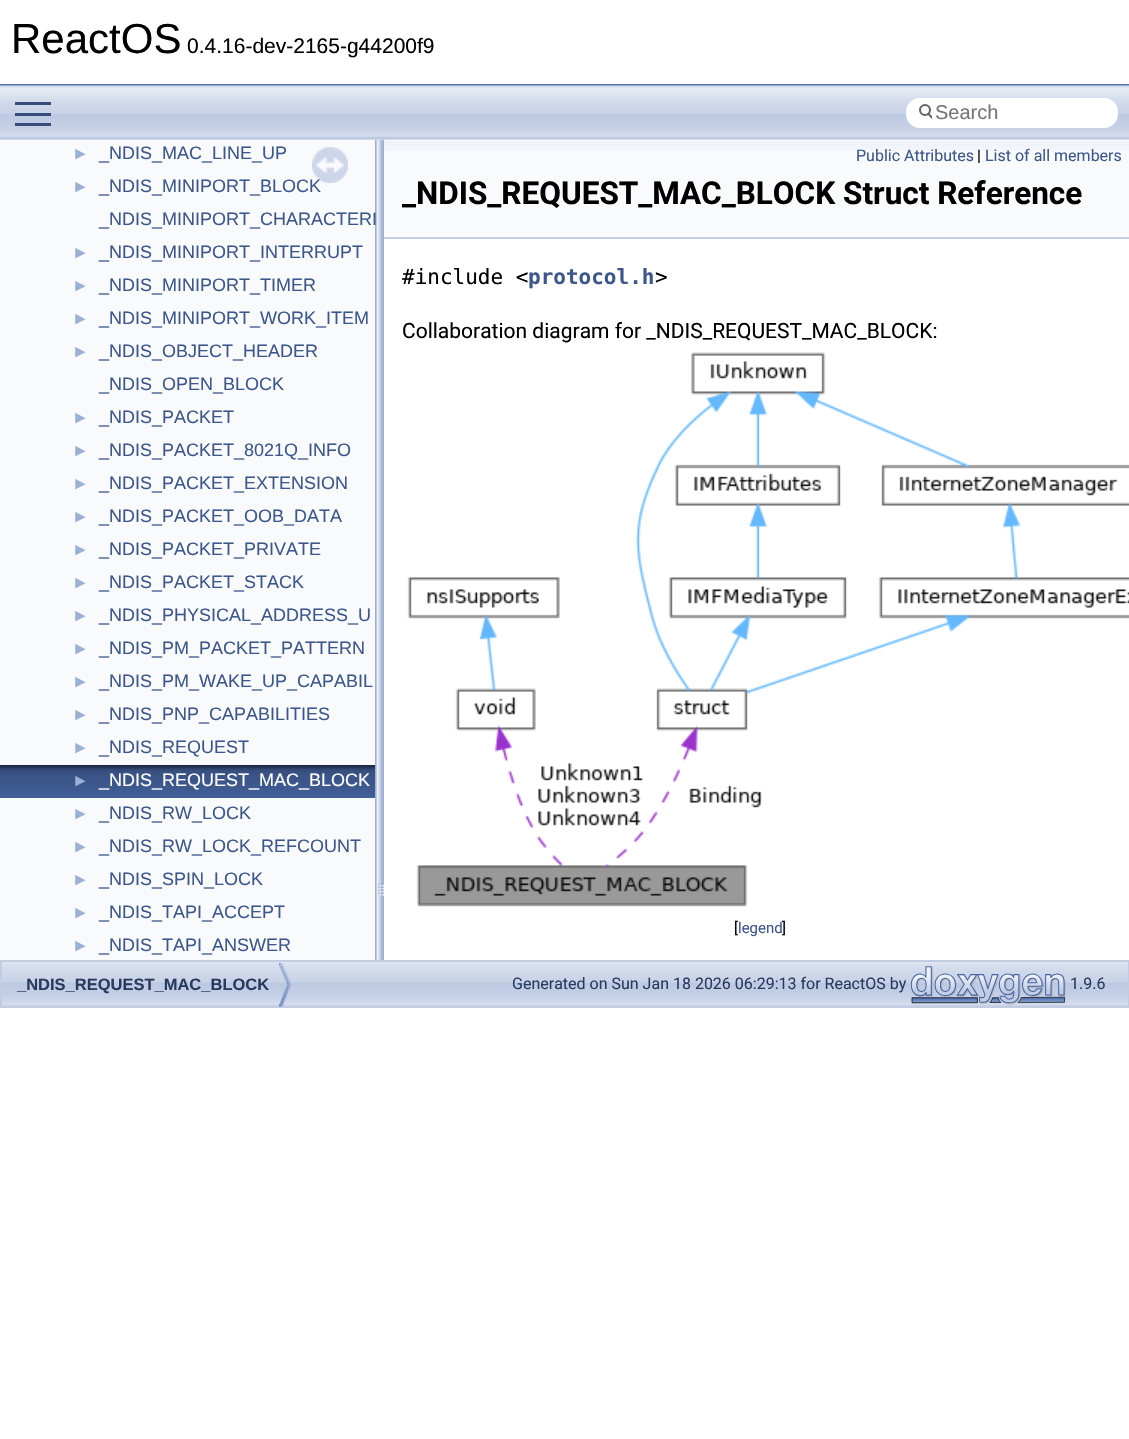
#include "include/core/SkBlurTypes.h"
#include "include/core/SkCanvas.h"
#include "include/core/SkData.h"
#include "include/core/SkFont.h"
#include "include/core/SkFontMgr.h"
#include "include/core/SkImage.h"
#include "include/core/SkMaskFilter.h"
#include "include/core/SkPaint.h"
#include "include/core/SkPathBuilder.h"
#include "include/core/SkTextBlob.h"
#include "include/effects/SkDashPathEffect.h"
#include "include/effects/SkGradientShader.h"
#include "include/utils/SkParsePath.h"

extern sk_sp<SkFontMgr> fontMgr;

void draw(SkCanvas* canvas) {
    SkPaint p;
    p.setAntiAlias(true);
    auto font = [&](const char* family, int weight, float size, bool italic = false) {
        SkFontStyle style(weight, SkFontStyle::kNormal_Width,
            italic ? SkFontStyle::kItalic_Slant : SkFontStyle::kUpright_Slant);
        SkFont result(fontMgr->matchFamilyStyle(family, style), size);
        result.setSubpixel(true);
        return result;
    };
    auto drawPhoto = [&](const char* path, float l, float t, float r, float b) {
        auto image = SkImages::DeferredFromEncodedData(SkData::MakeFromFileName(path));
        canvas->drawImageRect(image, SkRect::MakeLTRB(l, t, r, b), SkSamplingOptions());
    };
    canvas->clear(0xFFFFFFFF);
    p.setColor(0xFF5373B4);
    canvas->drawRect(SkRect::MakeLTRB(0, 84, 1129, 86), p);
    auto font1 = font("Liberation Sans", 400, 42);
    p.setColor(0xFF000000);
    canvas->drawString("ReactOS", 11, 53, font1, p);
    auto font2 = font("Liberation Sans", 400, 21);
    canvas->drawString("0.4.16-dev-2165-g44200f9", 187, 53, font2, p);
    drawPhoto("media/4.png", 375, 139, 384, 960);
    drawPhoto("media/1.png", 0, 85, 1129, 140);
    {
        const struct { float l, t, r, b; SkColor color; } items[] = {
            {15, 113, 51, 116, 0xFF364D7C},
            {15, 102, 51, 105, 0xFF364D7C},
            {15, 123, 51, 126, 0xFF364D7C},
        };
        for (auto [l, t, r, b, color] : items) {
            p.setColor(color);
            canvas->drawRect(SkRect::MakeLTRB(l, t, r, b), p);
        }
    }
    p.setColor(0xFFFFFFFF);
    canvas->drawRoundRect(SkRect::MakeLTRB(906, 98, 1118, 128), 14, 14, p);
    p.setStyle(SkPaint::kStroke_Style);
    p.setStrokeWidth(2.1f);
    p.setColor(0xFF656565);
    canvas->drawCircle(925, 110, 5, p);
    canvas->save();
    canvas->clipRect(SkRect::MakeLTRB(917, 98, 932, 126));
    p.setStrokeCap(SkPaint::kRound_Cap);
    canvas->drawPath(SkPathBuilder().moveTo(928.5f, 114).lineTo(933, 118.5f).detach(), p);
    canvas->restore();
    auto font3 = font("Liberation Sans", 400, 20);
    p.setStyle(SkPaint::kFill_Style);
    p.setColor(0xFF757575);
    canvas->drawString("Search", 935, 119, font3, p);
    p.setColor(0xFFF9FAFC);
    canvas->drawRect(SkRect::MakeLTRB(0, 140, 375, 960), p);
    auto font4 = font("Liberation Sans", 400, 17);
    p.setColor(0xFF9CAFD4);
    canvas->drawString("►", 72, 159, font4, p);
    auto font5 = font("Liberation Sans", 400, 18);
    p.setColor(0xFF3D578C);
    canvas->drawString("_NDIS_MAC_LINE_UP", 99, 159, font5, p);
    p.setColor(0xFF9CAFD4);
    canvas->drawString("►", 72, 192, font4, p);
    p.setColor(0xFF3D578C);
    canvas->drawString("_NDIS_MINIPORT_BLOCK", 99, 192, font5, p);
    canvas->drawString("_NDIS_MINIPORT_CHARACTERI", 99, 225, font5, p);
    p.setColor(0xFF9CAFD4);
    canvas->drawString("►", 72, 258, font4, p);
    p.setColor(0xFF3D578C);
    canvas->drawString("_NDIS_MINIPORT_INTERRUPT", 99, 258, font5, p);
    p.setColor(0xFF9CAFD4);
    canvas->drawString("►", 72, 291, font4, p);
    p.setColor(0xFF3D578C);
    canvas->drawString("_NDIS_MINIPORT_TIMER", 99, 291, font5, p);
    p.setColor(0xFF9CAFD4);
    canvas->drawString("►", 72, 324, font4, p);
    p.setColor(0xFF3D578C);
    canvas->drawString("_NDIS_MINIPORT_WORK_ITEM", 99, 324, font5, p);
    p.setColor(0xFF9CAFD4);
    canvas->drawString("►", 72, 357, font4, p);
    p.setColor(0xFF3D578C);
    canvas->drawString("_NDIS_OBJECT_HEADER", 99, 357, font5, p);
    canvas->drawString("_NDIS_OPEN_BLOCK", 99, 390, font5, p);
    p.setColor(0xFF9CAFD4);
    canvas->drawString("►", 72, 423, font4, p);
    p.setColor(0xFF3D578C);
    canvas->drawString("_NDIS_PACKET", 99, 423, font5, p);
    p.setColor(0xFF9CAFD4);
    canvas->drawString("►", 72, 456, font4, p);
    p.setColor(0xFF3D578C);
    canvas->drawString("_NDIS_PACKET_8021Q_INFO", 99, 456, font5, p);
    p.setColor(0xFF9CAFD4);
    canvas->drawString("►", 72, 489, font4, p);
    p.setColor(0xFF3D578C);
    canvas->drawString("_NDIS_PACKET_EXTENSION", 99, 489, font5, p);
    p.setColor(0xFF9CAFD4);
    canvas->drawString("►", 72, 522, font4, p);
    p.setColor(0xFF3D578C);
    canvas->drawString("_NDIS_PACKET_OOB_DATA", 99, 522, font5, p);
    p.setColor(0xFF9CAFD4);
    canvas->drawString("►", 72, 555, font4, p);
    p.setColor(0xFF3D578C);
    canvas->drawString("_NDIS_PACKET_PRIVATE", 99, 555, font5, p);
    p.setColor(0xFF9CAFD4);
    canvas->drawString("►", 72, 588, font4, p);
    p.setColor(0xFF3D578C);
    canvas->drawString("_NDIS_PACKET_STACK", 99, 588, font5, p);
    p.setColor(0xFF9CAFD4);
    canvas->drawString("►", 72, 621, font4, p);
    p.setColor(0xFF3D578C);
    canvas->drawString("_NDIS_PHYSICAL_ADDRESS_U", 99, 621, font5, p);
    p.setColor(0xFF9CAFD4);
    canvas->drawString("►", 72, 654, font4, p);
    p.setColor(0xFF3D578C);
    canvas->drawString("_NDIS_PM_PACKET_PATTERN", 99, 654, font5, p);
    p.setColor(0xFF9CAFD4);
    canvas->drawString("►", 72, 687, font4, p);
    p.setColor(0xFF3D578C);
    canvas->drawString("_NDIS_PM_WAKE_UP_CAPABIL", 99, 687, font5, p);
    p.setColor(0xFF9CAFD4);
    canvas->drawString("►", 72, 720, font4, p);
    p.setColor(0xFF3D578C);
    canvas->drawString("_NDIS_PNP_CAPABILITIES", 99, 720, font5, p);
    p.setColor(0xFF9CAFD4);
    canvas->drawString("►", 72, 753, font4, p);
    p.setColor(0xFF3D578C);
    canvas->drawString("_NDIS_REQUEST", 99, 753, font5, p);
    drawPhoto("media/2.png", 0, 765, 375, 798);
    p.setColor(0xFF9CAFD4);
    canvas->drawString("►", 72, 786, font4, p);
    p.setColor(0xFFFFFFFF);
    canvas->drawString("_NDIS_REQUEST_MAC_BLOCK", 99, 786, font5, p);
    p.setColor(0xFF9CAFD4);
    canvas->drawString("►", 72, 819, font4, p);
    p.setColor(0xFF3D578C);
    canvas->drawString("_NDIS_RW_LOCK", 99, 819, font5, p);
    p.setColor(0xFF9CAFD4);
    canvas->drawString("►", 72, 852, font4, p);
    p.setColor(0xFF3D578C);
    canvas->drawString("_NDIS_RW_LOCK_REFCOUNT", 99, 852, font5, p);
    p.setColor(0xFF9CAFD4);
    canvas->drawString("►", 72, 885, font4, p);
    p.setColor(0xFF3D578C);
    canvas->drawString("_NDIS_SPIN_LOCK", 99, 885, font5, p);
    p.setColor(0xFF9CAFD4);
    canvas->drawString("►", 72, 918, font4, p);
    p.setColor(0xFF3D578C);
    canvas->drawString("_NDIS_TAPI_ACCEPT", 99, 918, font5, p);
    p.setColor(0xFF9CAFD4);
    canvas->drawString("►", 72, 951, font4, p);
    p.setColor(0xFF3D578C);
    canvas->drawString("_NDIS_TAPI_ANSWER", 99, 951, font5, p);
    drawPhoto("media/3.png", 312, 147, 348, 183);
    p.setColor(0xFFF9FAFC);
    canvas->drawRect(SkRect::MakeLTRB(384, 140, 1129, 237), p);
    drawPhoto("media/5.png", 384, 141, 1129, 151);
    p.setColor(0xFFC4CFE5);
    canvas->drawRect(SkRect::MakeLTRB(384, 237, 1129, 239), p);
    auto font6 = font("Roboto", 400, 16);
    p.setColor(0xFF3D578C);
    canvas->drawString("Public Attributes", 856, 161, font6, p);
    p.setColor(0xFF000000);
    canvas->drawString("|", 977, 161, font6, p);
    p.setColor(0xFF3D578C);
    canvas->drawString("List of all members", 985, 161, font6, p);
    auto font7 = font("Roboto", 700, 31.5f);
    p.setColor(0xFF000000);
    canvas->drawString("_NDIS_REQUEST_MAC_BLOCK Struct Reference", 402, 204, font7, p);
    auto font8 = font("DejaVu Sans Mono", 400, 21);
    canvas->drawString("#include <", 402, 284, font8, p);
    auto font9 = font("DejaVu Sans Mono", 700, 21);
    p.setColor(0xFF3D578C);
    canvas->drawString("protocol.h", 528, 284, font9, p);
    p.setColor(0xFF000000);
    canvas->drawString(">", 655, 284, font8, p);
    auto font10 = font("Roboto", 400, 21);
    canvas->drawString("Collaboration diagram for _NDIS_REQUEST_MAC_BLOCK:", 402, 338, font10, p);
    drawPhoto("media/6.png", 407, 352, 1129, 907);
    auto font11 = font("Roboto", 400, 15);
    canvas->drawString("[", 734, 933, font11, p);
    p.setColor(0xFF3D578C);
    canvas->drawString("legend", 738, 933, font11, p);
    p.setColor(0xFF000000);
    canvas->drawString("]", 782, 933, font11, p);
    drawPhoto("media/7.png", 2, 962, 1128, 1006);
    p.setStyle(SkPaint::kStroke_Style);
    p.setStrokeWidth(2);
    p.setStrokeCap(SkPaint::kButt_Cap);
    p.setColor(0xFFC2CDE4);
    canvas->drawRect(SkRect::MakeLTRB(1, 961, 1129, 1007), p);
    drawPhoto("media/8.png", 279, 963, 291, 1007);
    auto font12 = font("Liberation Sans", 700, 16.5f);
    p.setStyle(SkPaint::kFill_Style);
    p.setColor(0xFF283A5D);
    canvas->drawString("_NDIS_REQUEST_MAC_BLOCK", 17, 990, font12, p);
    canvas->drawString("Generated on Sun Jan 18 2026 06:29:13 for ReactOS by", 512, 989, font6, p);
    drawPhoto("media/9.png", 911, 966, 1066, 1005);
    canvas->drawString("1.9.6", 1070, 989, font6, p);
}
